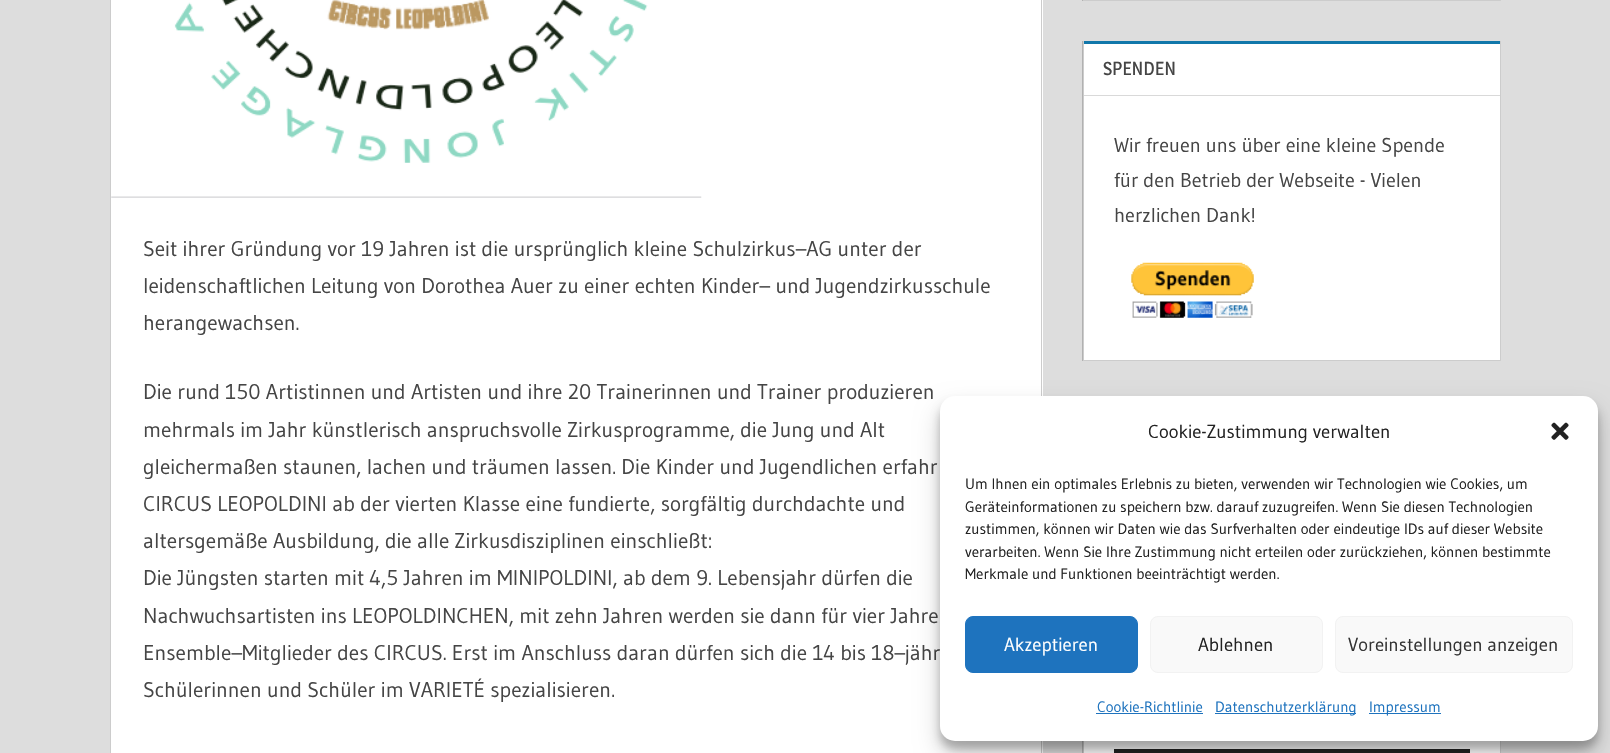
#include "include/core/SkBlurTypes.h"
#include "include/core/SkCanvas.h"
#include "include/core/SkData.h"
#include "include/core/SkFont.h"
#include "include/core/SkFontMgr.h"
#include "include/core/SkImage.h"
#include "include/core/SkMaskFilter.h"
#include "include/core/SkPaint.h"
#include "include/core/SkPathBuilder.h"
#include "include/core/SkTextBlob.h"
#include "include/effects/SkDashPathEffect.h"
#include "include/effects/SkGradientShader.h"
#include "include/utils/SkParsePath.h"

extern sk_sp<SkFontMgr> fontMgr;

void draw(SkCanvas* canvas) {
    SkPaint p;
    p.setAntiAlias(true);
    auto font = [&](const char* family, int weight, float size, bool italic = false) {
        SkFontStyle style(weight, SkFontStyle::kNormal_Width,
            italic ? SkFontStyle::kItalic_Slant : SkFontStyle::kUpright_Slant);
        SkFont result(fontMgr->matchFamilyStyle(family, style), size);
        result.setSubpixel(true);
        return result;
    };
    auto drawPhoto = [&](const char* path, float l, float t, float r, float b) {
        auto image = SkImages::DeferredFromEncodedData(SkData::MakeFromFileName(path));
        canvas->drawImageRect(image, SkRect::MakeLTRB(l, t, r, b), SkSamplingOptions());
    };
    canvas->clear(0xFFDDDDDD);
    p.setColor(0xFFFFFFFF);
    canvas->drawRect(SkRect::MakeLTRB(1083, 0, 1501, 1), p);
    p.setColor(0xFFCCCCCC);
    canvas->drawPath(SkPathBuilder().moveTo(1501, -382).lineTo(1501, 1).lineTo(1500, 0).lineTo(1500, -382).close().detach(), p);
    p.setColor(0x33000000);
    canvas->drawPath(SkPathBuilder().moveTo(1501, 1).lineTo(1082, 1).lineTo(1084, 0).lineTo(1500, 0).close().detach(), p);
    p.setColor(0xFFA8A8A8);
    canvas->drawPath(SkPathBuilder().moveTo(1082, 1).lineTo(1082, -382).lineTo(1084, -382).lineTo(1084, 0).close().detach(), p);
    p.setColor(0xFFFFFFFF);
    canvas->drawRect(SkRect::MakeLTRB(1083, 41, 1501, 361), p);
    p.setColor(0xFF1177AA);
    canvas->drawRect(SkRect::MakeLTRB(1084, 41, 1500, 44), p);
    p.setColor(0xFFCCCCCC);
    canvas->drawPath(SkPathBuilder().moveTo(1501, 41).lineTo(1501, 361).lineTo(1500, 360).lineTo(1500, 41).close().detach(), p);
    p.setColor(0x33000000);
    canvas->drawPath(SkPathBuilder().moveTo(1501, 361).lineTo(1082, 361).lineTo(1084, 360).lineTo(1500, 360).close().detach(), p);
    canvas->drawPath(SkPathBuilder().moveTo(1082, 361).lineTo(1082, 41).lineTo(1084, 41).lineTo(1084, 360).close().detach(), p);
    p.setColor(0xFFD9D9D9);
    canvas->drawRect(SkRect::MakeLTRB(1084, 95, 1500, 96), p);
    auto font1 = font("Magra", 400, 18.75f);
    p.setColor(0xFF454545);
    canvas->drawString("SPENDEN", 1103, 75, font1, p);
    auto font2 = font("Gudea", 400, 20);
    {
        const struct { const char* s; float x, y; } items[] = {
            {"Wir freuen uns über eine kleine Spende", 1114, 152},
            {"für den Betrieb der Webseite - Vielen", 1114, 187},
            {"herzlichen Dank!", 1114, 222},
        };
        for (auto [s, x, y] : items) {
            canvas->drawString(s, x, y, font2, p);
        }
    }
    drawPhoto("media/1.png", 1131, 262, 1254, 318);
    p.setColor(0xFFFFFFFF);
    canvas->drawRect(SkRect::MakeLTRB(1083, 741, 1500, 753), p);
    p.setColor(0xFFCCCCCC);
    canvas->drawPath(SkPathBuilder().moveTo(1501, 664).lineTo(1501, 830).lineTo(1500, 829).lineTo(1500, 664).close().detach(), p);
    p.setColor(0x33000000);
    canvas->drawPath(SkPathBuilder().moveTo(1082, 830).lineTo(1082, 664).lineTo(1084, 664).lineTo(1084, 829).close().detach(), p);
    p.setColor(0xFF222222);
    canvas->drawRect(SkRect::MakeLTRB(1114, 749, 1470, 753), p);
    p.setColor(0xFFFFFFFF);
    canvas->drawRect(SkRect::MakeLTRB(111, 0, 1043, 753), p);
    p.setColor(0xFFCCCCCC);
    canvas->drawPath(SkPathBuilder().moveTo(1042, -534).lineTo(1042, 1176).lineTo(1041, 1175).lineTo(1041, -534).close().detach(), p);
    canvas->drawPath(SkPathBuilder().moveTo(110, 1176).lineTo(110, -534).lineTo(111, -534).lineTo(111, 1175).close().detach(), p);
    drawPhoto("media/2.png", 111, 0, 702, 198);
    auto font3 = font("Gudea", 400, 21.25f);
    p.setColor(0xFF454545);
    {
        const struct { const char* s; float x, y; } items[] = {
            {"Seit ihrer Gründung vor 19 Jahren ist die ursprünglich kleine Schulzirkus–AG unter der", 143, 256},
            {"leidenschaftlichen Leitung von Dorothea Auer zu einer echten Kinder– und Jugendzirkusschule", 143, 293},
            {"herangewachsen.", 143, 330},
            {"Die rund 150 Artistinnen und Artisten und ihre 20 Trainerinnen und Trainer produzieren", 143, 399},
            {"mehrmals im Jahr künstlerisch anspruchsvolle Zirkusprogramme, die Jung und Alt", 143, 437},
            {"gleichermaßen staunen, lachen und träumen lassen. Die Kinder und Jugendlichen erfahr", 143, 474},
            {"CIRCUS LEOPOLDINI ab der vierten Klasse eine fundierte, sorgfältig durchdachte und", 143, 511},
            {"altersgemäße Ausbildung, die alle Zirkusdisziplinen einschließt:", 143, 548},
            {"Die Jüngsten starten mit 4,5 Jahren im MINIPOLDINI, ab dem 9. Lebensjahr dürfen die", 143, 585},
            {"Nachwuchsartisten ins LEOPOLDINCHEN, mit zehn Jahren werden sie dann für vier Jahre", 143, 623},
            {"Ensemble–Mitglieder des CIRCUS. Erst im Anschluss daran dürfen sich die 14 bis 18–jähr", 143, 660},
            {"Schülerinnen und Schüler im VARIETÉ spezialisieren.", 143, 697},
        };
        for (auto [s, x, y] : items) {
            canvas->drawString(s, x, y, font3, p);
        }
    }
    p.setColor(0x3B000000);
    p.setMaskFilter(SkMaskFilter::MakeBlur(kNormal_SkBlurStyle, 4));
    canvas->drawRoundRect(SkRect::MakeLTRB(940, 404, 1598, 749), 15, 15, p);
    p.setMaskFilter(nullptr);
    p.setColor(0x30000000);
    p.setMaskFilter(SkMaskFilter::MakeBlur(kNormal_SkBlurStyle, 12.5f));
    canvas->drawRoundRect(SkRect::MakeLTRB(940, 409, 1598, 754), 15, 15, p);
    p.setMaskFilter(nullptr);
    p.setColor(0xFFFFFFFF);
    canvas->drawRoundRect(SkRect::MakeLTRB(940, 396, 1598, 741), 15, 15, p);
    auto font4 = font("Gudea", 400, 18.75f);
    p.setColor(0xFF222222);
    canvas->drawString("Cookie-Zustimmung verwalten", 1148, 438, font4, p);
    drawPhoto("media/3.png", 1551, 422, 1569, 440);
    auto font5 = font("Gudea", 400, 15);
    {
        const struct { const char* s; float x, y; } items[] = {
            {"Um Ihnen ein optimales Erlebnis zu bieten, verwenden wir Technologien wie Cookies, um", 965, 489},
            {"Geräteinformationen zu speichern bzw. darauf zuzugreifen. Wenn Sie diesen Technologien", 965, 512},
            {"zustimmen, können wir Daten wie das Surfverhalten oder eindeutige IDs auf dieser Website", 965, 534},
            {"verarbeiten. Wenn Sie Ihre Zustimmung nicht erteilen oder zurückziehen, können bestimmte", 965, 557},
            {"Merkmale und Funktionen beeinträchtigt werden.", 965, 579},
        };
        for (auto [s, x, y] : items) {
            canvas->drawString(s, x, y, font5, p);
        }
    }
    p.setColor(0xFF1E73BE);
    canvas->drawRoundRect(SkRect::MakeLTRB(965.5f, 616.5f, 1137.5f, 672.5f), 7.5f, 7.5f, p);
    p.setStyle(SkPaint::kStroke_Style);
    p.setStrokeWidth(1);
    canvas->drawRoundRect(SkRect::MakeLTRB(965.5f, 616.5f, 1137.5f, 672.5f), 7.5f, 7.5f, p);
    p.setStyle(SkPaint::kFill_Style);
    p.setColor(0xFFFFFFFF);
    canvas->drawString("Akzeptieren", 1004, 651, font4, p);
    p.setColor(0xFFF9F9F9);
    canvas->drawRoundRect(SkRect::MakeLTRB(1150.5f, 616.5f, 1322.5f, 672.5f), 7.5f, 7.5f, p);
    p.setStyle(SkPaint::kStroke_Style);
    p.setColor(0xFFF2F2F2);
    canvas->drawRoundRect(SkRect::MakeLTRB(1150.5f, 616.5f, 1322.5f, 672.5f), 7.5f, 7.5f, p);
    p.setStyle(SkPaint::kFill_Style);
    p.setColor(0xFF222222);
    canvas->drawString("Ablehnen", 1198, 651, font4, p);
    p.setColor(0xFFF9F9F9);
    canvas->drawRoundRect(SkRect::MakeLTRB(1335.5f, 616.5f, 1572.5f, 672.5f), 7.5f, 7.5f, p);
    p.setStyle(SkPaint::kStroke_Style);
    p.setColor(0xFFF2F2F2);
    canvas->drawRoundRect(SkRect::MakeLTRB(1335.5f, 616.5f, 1572.5f, 672.5f), 7.5f, 7.5f, p);
    p.setStyle(SkPaint::kFill_Style);
    p.setColor(0xFF333333);
    canvas->drawString("Voreinstellungen anzeigen", 1348, 651, font4, p);
    p.setColor(0xFF1E73BE);
    canvas->drawString("Cookie-Richtlinie", 1097, 712, font5, p);
    canvas->drawRect(SkRect::MakeLTRB(1096, 713, 1203, 714), p);
    canvas->drawRect(SkRect::MakeLTRB(1215, 713, 1356, 714), p);
    canvas->drawString("Datenschutzerklärung", 1215, 712, font5, p);
    canvas->drawRect(SkRect::MakeLTRB(1369, 713, 1441, 714), p);
    canvas->drawString("Impressum", 1369, 712, font5, p);
}
